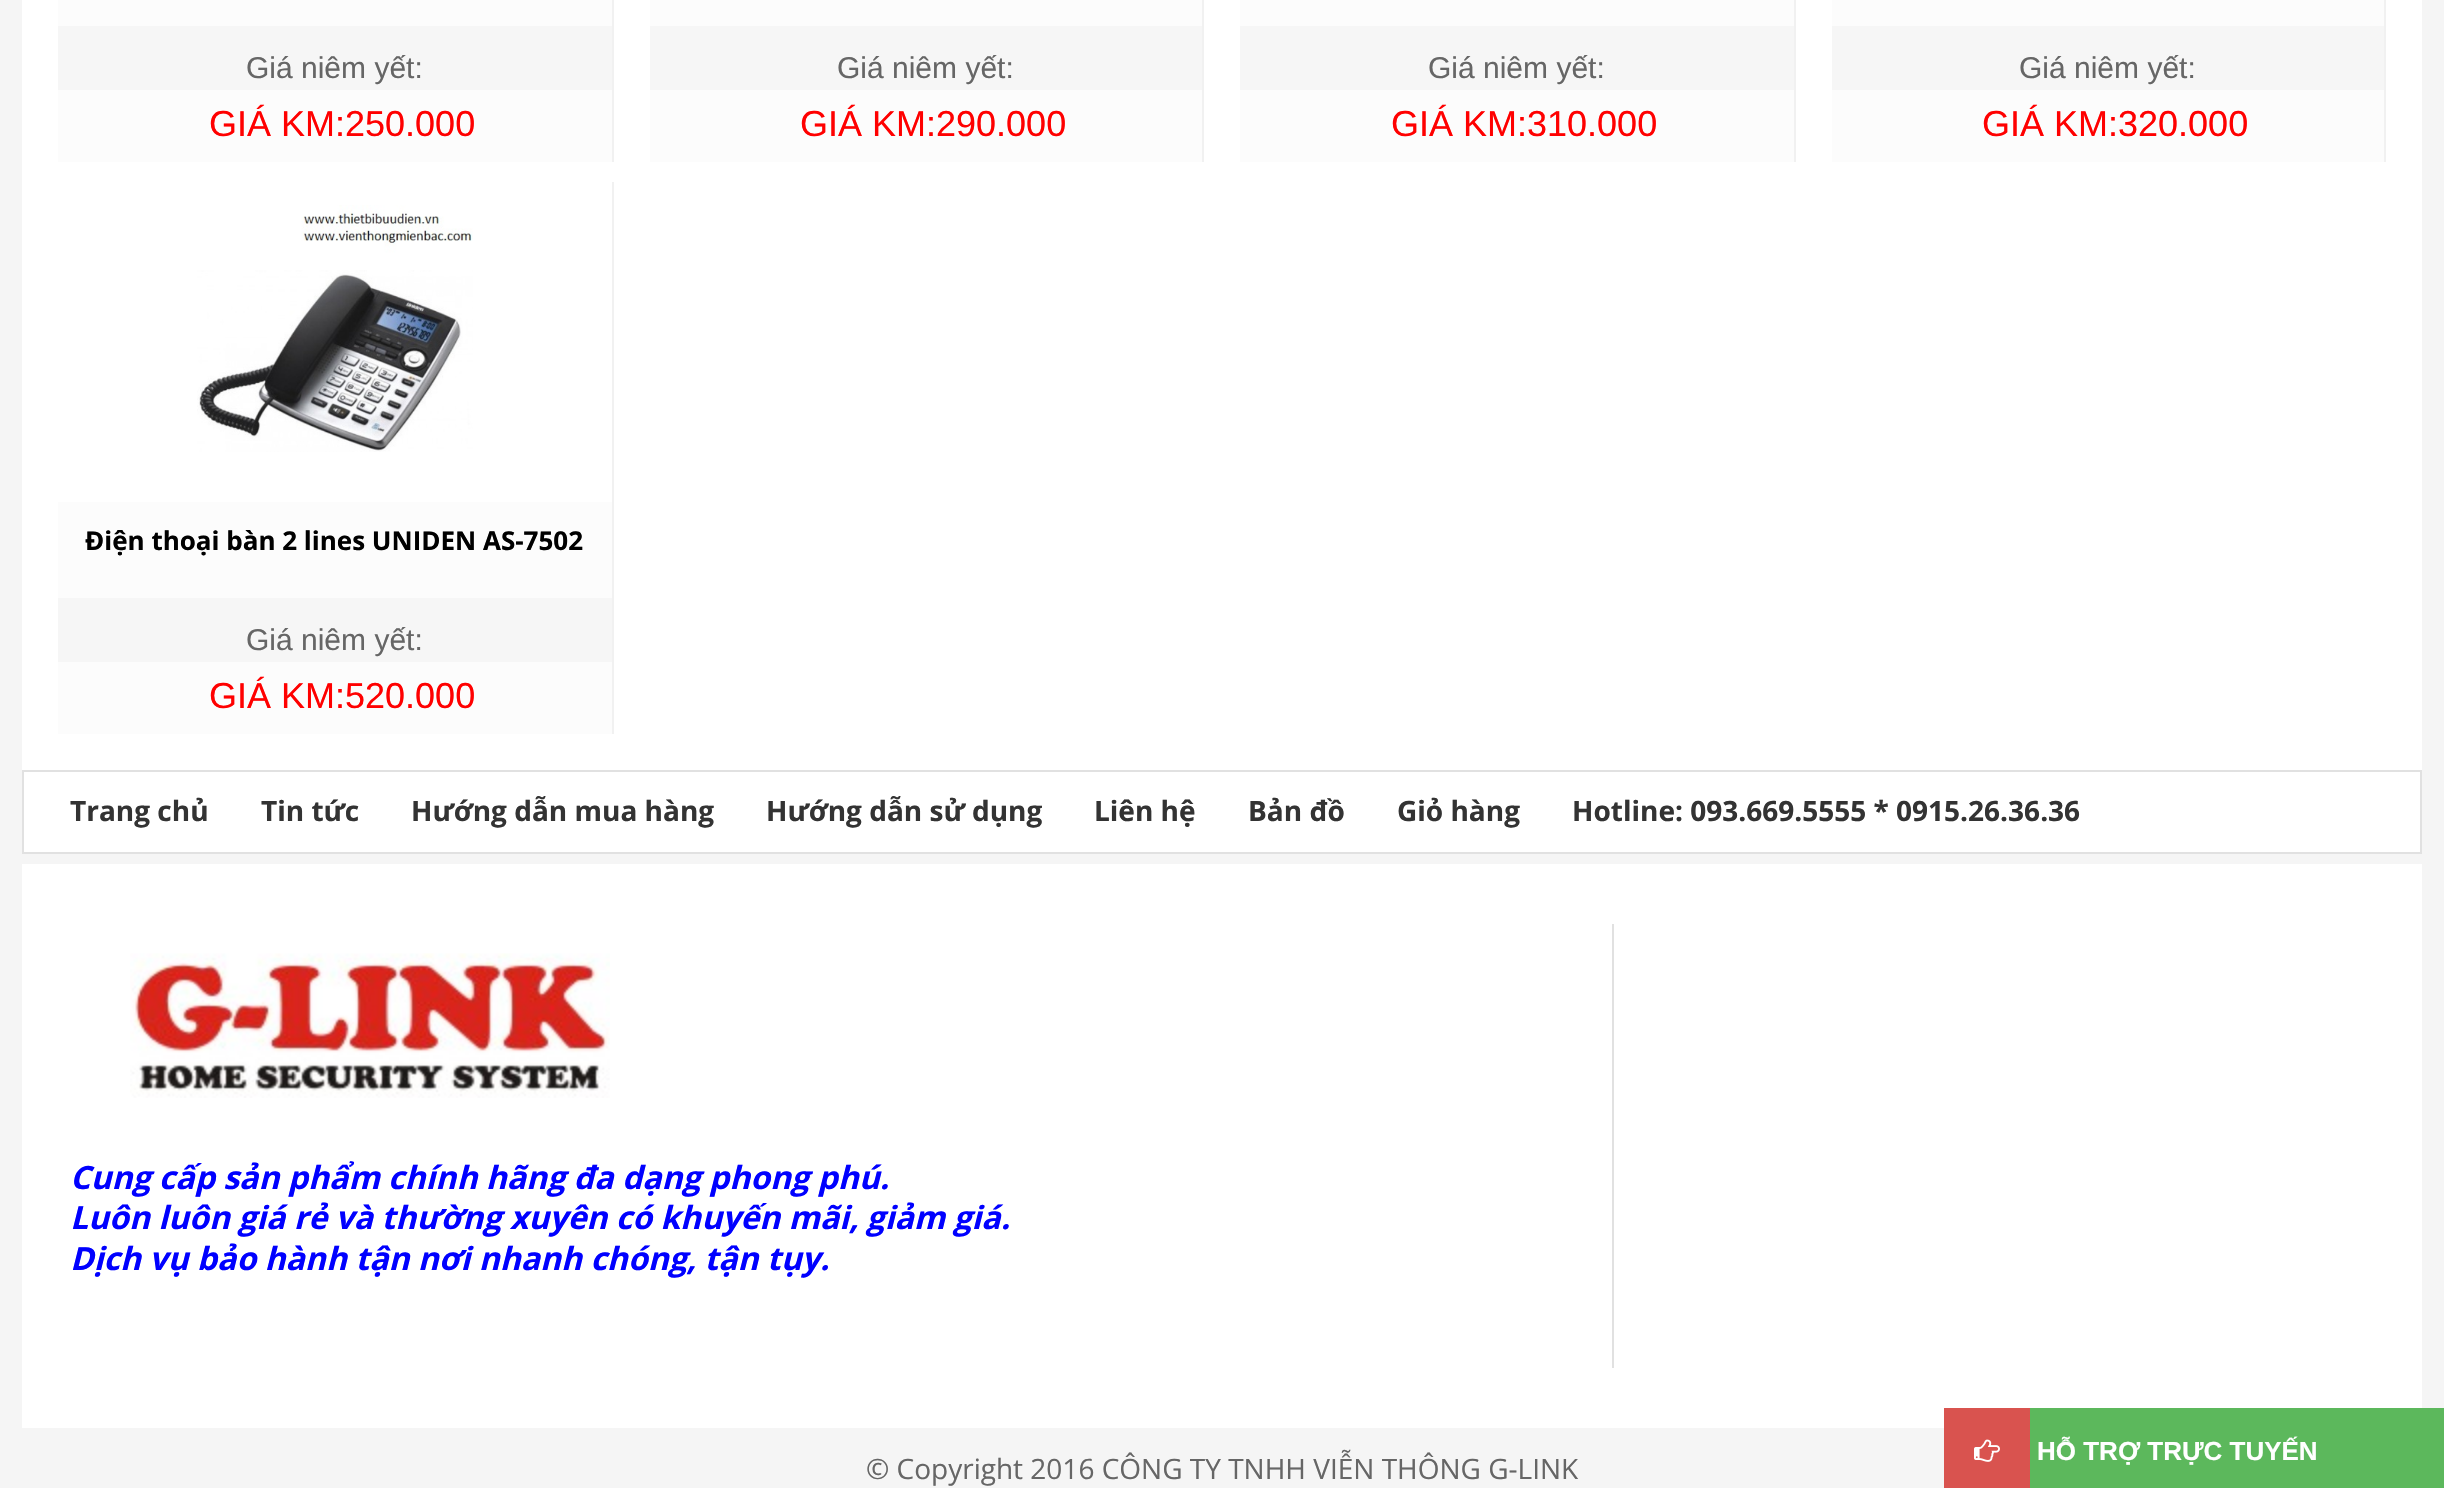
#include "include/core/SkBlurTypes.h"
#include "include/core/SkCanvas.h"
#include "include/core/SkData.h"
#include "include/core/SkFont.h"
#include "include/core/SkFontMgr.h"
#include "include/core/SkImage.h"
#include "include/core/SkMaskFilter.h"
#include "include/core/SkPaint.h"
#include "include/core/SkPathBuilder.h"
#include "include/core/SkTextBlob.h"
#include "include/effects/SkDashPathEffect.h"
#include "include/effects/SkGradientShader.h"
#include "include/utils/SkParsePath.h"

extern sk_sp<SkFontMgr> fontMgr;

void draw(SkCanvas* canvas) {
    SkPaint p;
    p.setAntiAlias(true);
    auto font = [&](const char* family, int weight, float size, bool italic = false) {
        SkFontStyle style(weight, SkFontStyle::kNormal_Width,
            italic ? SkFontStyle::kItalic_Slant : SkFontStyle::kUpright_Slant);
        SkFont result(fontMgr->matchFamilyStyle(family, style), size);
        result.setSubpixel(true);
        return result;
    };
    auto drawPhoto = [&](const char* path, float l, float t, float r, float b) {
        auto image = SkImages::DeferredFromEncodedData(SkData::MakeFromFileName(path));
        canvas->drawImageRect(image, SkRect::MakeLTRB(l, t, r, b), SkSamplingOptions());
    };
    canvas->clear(0xFFF5F5F5);
    {
        const struct { float l, t, r, b; SkColor color; } items[] = {
            {22, 0, 2422, 770, 0xFFFFFFFF},
            {612, 0, 614, 162, 0xFFF1F1F1},
            {58, 0, 612, 26, 0xFFFCFCFC},
            {58, 26, 612, 90, 0xFFF6F6F6},
        };
        for (auto [l, t, r, b, color] : items) {
            p.setColor(color);
            canvas->drawRect(SkRect::MakeLTRB(l, t, r, b), p);
        }
    }
    auto font1 = font("Liberation Sans", 400, 30);
    p.setColor(0xFF666666);
    canvas->drawString("Giá niêm yết:", 246, 78, font1, p);
    p.setColor(0xFFFCFCFC);
    canvas->drawRect(SkRect::MakeLTRB(58, 90, 612, 162), p);
    auto font2 = font("Liberation Sans", 400, 36);
    p.setColor(0xFFFF0000);
    canvas->drawString("GIÁ KM:250.000", 209, 136, font2, p);
    {
        const struct { float l, t, r, b; SkColor color; } items[] = {
            {1202, 0, 1204, 162, 0xFFF1F1F1},
            {650, 0, 1202, 26, 0xFFFCFCFC},
            {650, 26, 1202, 90, 0xFFF6F6F6},
        };
        for (auto [l, t, r, b, color] : items) {
            p.setColor(color);
            canvas->drawRect(SkRect::MakeLTRB(l, t, r, b), p);
        }
    }
    p.setColor(0xFF666666);
    canvas->drawString("Giá niêm yết:", 837, 78, font1, p);
    p.setColor(0xFFFCFCFC);
    canvas->drawRect(SkRect::MakeLTRB(650, 90, 1202, 162), p);
    p.setColor(0xFFFF0000);
    canvas->drawString("GIÁ KM:290.000", 800, 136, font2, p);
    {
        const struct { float l, t, r, b; SkColor color; } items[] = {
            {1794, 0, 1796, 162, 0xFFF1F1F1},
            {1240, 0, 1794, 26, 0xFFFCFCFC},
            {1240, 26, 1794, 90, 0xFFF6F6F6},
        };
        for (auto [l, t, r, b, color] : items) {
            p.setColor(color);
            canvas->drawRect(SkRect::MakeLTRB(l, t, r, b), p);
        }
    }
    p.setColor(0xFF666666);
    canvas->drawString("Giá niêm yết:", 1428, 78, font1, p);
    p.setColor(0xFFFCFCFC);
    canvas->drawRect(SkRect::MakeLTRB(1240, 90, 1794, 162), p);
    p.setColor(0xFFFF0000);
    canvas->drawString("GIÁ KM:310.000", 1391, 136, font2, p);
    {
        const struct { float l, t, r, b; SkColor color; } items[] = {
            {2384, 0, 2386, 162, 0xFFF1F1F1},
            {1832, 0, 2384, 26, 0xFFFCFCFC},
            {1832, 26, 2384, 90, 0xFFF6F6F6},
        };
        for (auto [l, t, r, b, color] : items) {
            p.setColor(color);
            canvas->drawRect(SkRect::MakeLTRB(l, t, r, b), p);
        }
    }
    p.setColor(0xFF666666);
    canvas->drawString("Giá niêm yết:", 2019, 78, font1, p);
    p.setColor(0xFFFCFCFC);
    canvas->drawRect(SkRect::MakeLTRB(1832, 90, 2384, 162), p);
    p.setColor(0xFFFF0000);
    canvas->drawString("GIÁ KM:320.000", 1982, 136, font2, p);
    p.setColor(0xFFF1F1F1);
    canvas->drawRect(SkRect::MakeLTRB(612, 182, 614, 734), p);
    drawPhoto("media/1.png", 197, 205, 473, 452);
    p.setColor(0xFFFCFCFC);
    canvas->drawRect(SkRect::MakeLTRB(58, 502, 612, 598), p);
    auto font3 = font("Open Sans", 700, 26);
    p.setColor(0xFF000000);
    canvas->drawString("Điện thoại bàn 2 lines UNIDEN AS-7502", 85, 550, font3, p);
    p.setColor(0xFFF6F6F6);
    canvas->drawRect(SkRect::MakeLTRB(58, 598, 612, 662), p);
    p.setColor(0xFF666666);
    canvas->drawString("Giá niêm yết:", 246, 650, font1, p);
    p.setColor(0xFFFCFCFC);
    canvas->drawRect(SkRect::MakeLTRB(58, 662, 612, 734), p);
    p.setColor(0xFFFF0000);
    canvas->drawString("GIÁ KM:520.000", 209, 708, font2, p);
    p.setColor(0xFFFFFFFF);
    canvas->drawRect(SkRect::MakeLTRB(23, 771, 2421, 853), p);
    p.setStyle(SkPaint::kStroke_Style);
    p.setStrokeWidth(2);
    p.setColor(0xFFE1E1E1);
    canvas->drawRect(SkRect::MakeLTRB(23, 771, 2421, 853), p);
    auto font4 = font("Open Sans", 700, 28);
    p.setStyle(SkPaint::kFill_Style);
    p.setColor(0xFF333333);
    {
        const struct { const char* s; float x, y; } items[] = {
            {"Trang chủ", 70, 821},
            {"Tin tức", 261, 821},
            {"Hướng dẫn mua hàng", 411, 821},
            {"Hướng dẫn sử dụng", 766, 821},
            {"Liên hệ", 1094, 821},
            {"Bản đồ", 1248, 821},
            {"Giỏ hàng", 1397, 821},
            {"Hotline: 093.669.5555 * 0915.26.36.36", 1572, 821},
        };
        for (auto [s, x, y] : items) {
            canvas->drawString(s, x, y, font4, p);
        }
    }
    p.setColor(0xFFFFFFFF);
    canvas->drawRect(SkRect::MakeLTRB(22, 864, 2422, 1428), p);
    p.setColor(0xFFE1E1E1);
    canvas->drawRect(SkRect::MakeLTRB(1612, 924, 1614, 1368), p);
    drawPhoto("media/2.png", 130, 953, 610, 1098);
    auto font5 = font("Open Sans", 700, 32, true);
    p.setColor(0xFF0000FF);
    {
        const struct { const char* s; float x, y; } items[] = {
            {"Cung cấp sản phẩm chính hãng đa dạng phong phú.", 70, 1189},
            {"Luôn luôn giá rẻ và thường xuyên có khuyến mãi, giảm giá.", 70, 1229},
            {"Dịch vụ bảo hành tận nơi nhanh chóng, tận tụy.", 70, 1270},
        };
        for (auto [s, x, y] : items) {
            canvas->drawString(s, x, y, font5, p);
        }
    }
    p.setColor(0xFF5CB85C);
    canvas->drawRect(SkRect::MakeLTRB(2030, 1408, 2444, 1488), p);
    p.setColor(0xFFD9534F);
    canvas->drawRect(SkRect::MakeLTRB(1944, 1408, 2030, 1488), p);
    drawPhoto("media/3.png", 1974, 1439, 2000, 1462);
    auto font6 = font("Liberation Sans", 700, 26);
    p.setColor(0xFFFFFFFF);
    canvas->drawString("HỖ TRỢ TRỰC TUYẾN", 2037, 1460, font6, p);
    auto font7 = font("Open Sans", 400, 28);
    p.setColor(0xFF666666);
    canvas->drawString("© Copyright 2016 CÔNG TY TNHH VIỄN THÔNG G-LINK", 866, 1479, font7, p);
}
